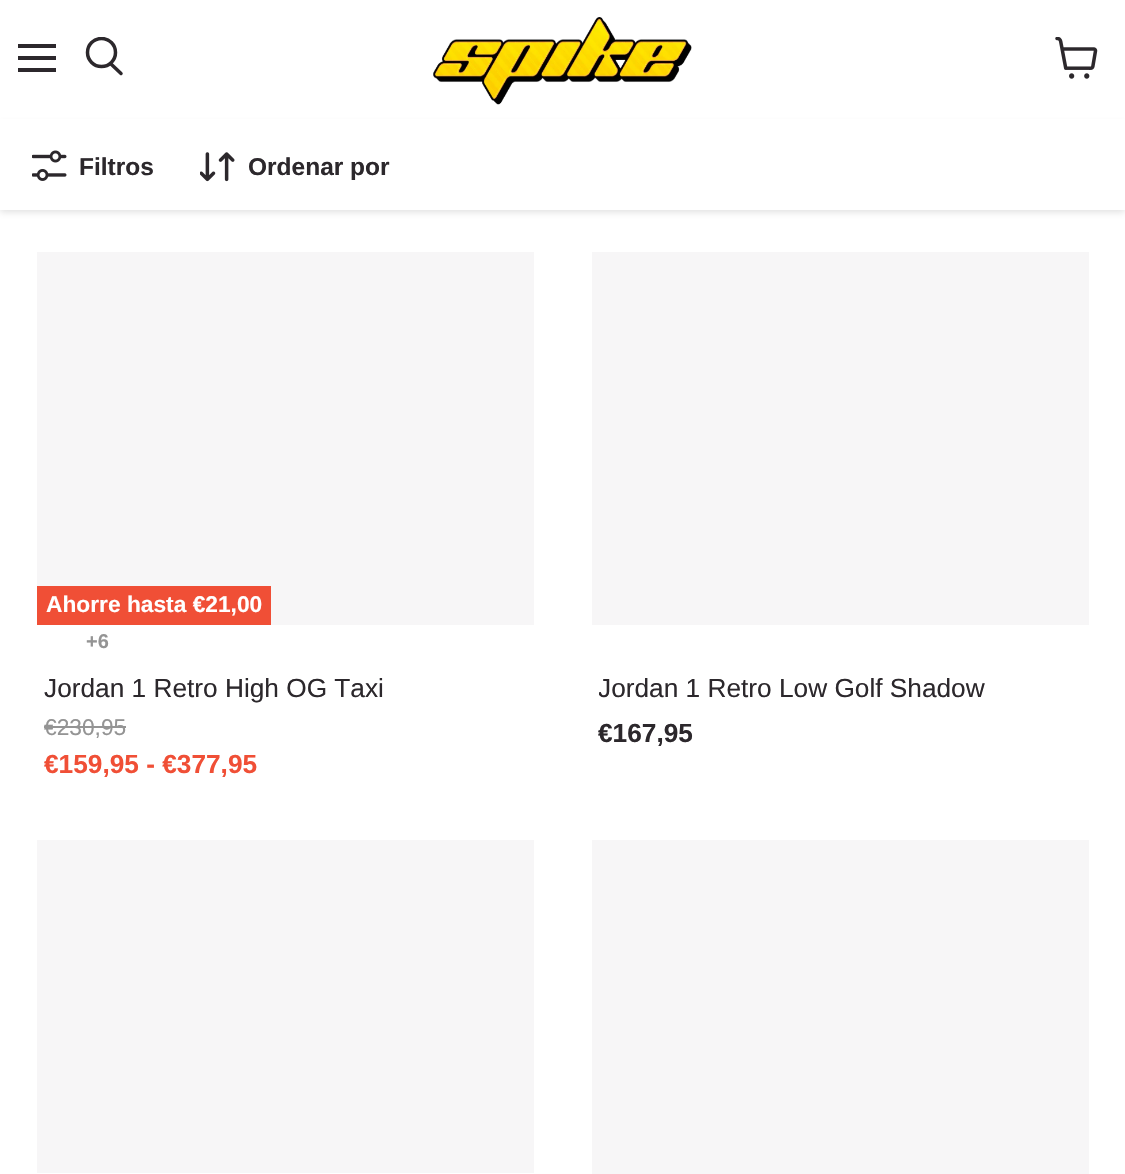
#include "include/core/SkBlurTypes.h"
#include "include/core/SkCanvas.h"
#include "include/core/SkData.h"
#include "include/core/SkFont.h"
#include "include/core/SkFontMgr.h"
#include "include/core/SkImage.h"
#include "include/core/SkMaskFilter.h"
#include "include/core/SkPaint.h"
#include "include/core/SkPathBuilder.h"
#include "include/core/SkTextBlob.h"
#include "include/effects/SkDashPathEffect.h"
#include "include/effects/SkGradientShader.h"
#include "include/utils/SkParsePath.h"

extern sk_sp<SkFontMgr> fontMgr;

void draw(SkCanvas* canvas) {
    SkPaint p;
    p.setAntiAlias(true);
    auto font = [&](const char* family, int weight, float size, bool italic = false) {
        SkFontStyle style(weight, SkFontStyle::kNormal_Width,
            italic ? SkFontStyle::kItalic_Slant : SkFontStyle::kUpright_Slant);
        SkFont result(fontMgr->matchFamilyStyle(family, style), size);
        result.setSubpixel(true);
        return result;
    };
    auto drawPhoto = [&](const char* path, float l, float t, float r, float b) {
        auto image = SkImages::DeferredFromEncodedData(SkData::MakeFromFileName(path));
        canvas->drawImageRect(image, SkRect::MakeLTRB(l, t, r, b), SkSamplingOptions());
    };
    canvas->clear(0xFFFFFFFF);
    {
        const struct { float l, t, r, b; SkColor color; } items[] = {
            {18, 44, 56, 48, 0xFF2C282C},
            {18, 56, 56, 60, 0xFF2C282C},
            {18, 68, 56, 72, 0xFF2C282C},
        };
        for (auto [l, t, r, b, color] : items) {
            p.setColor(color);
            canvas->drawRect(SkRect::MakeLTRB(l, t, r, b), p);
        }
    }
    p.setStyle(SkPaint::kStroke_Style);
    p.setStrokeWidth(3.5f);
    p.setStrokeCap(SkPaint::kRound_Cap);
    canvas->drawPath(SkPathBuilder().moveTo(121, 73.5f).lineTo(111, 64).detach(), p);
    canvas->save();
    canvas->clipRect(SkRect::MakeLTRB(84, 37, 124, 79));
    p.setStrokeCap(SkPaint::kButt_Cap);
    canvas->drawCircle(101.5f, 52.5f, 14, p);
    canvas->restore();
    drawPhoto("media/1.png", 433, 17, 692, 105);
    drawPhoto("media/2.png", 1055, 37, 1098, 79);
    p.setStyle(SkPaint::kFill_Style);
    p.setColor(0x40808080);
    p.setMaskFilter(SkMaskFilter::MakeBlur(kNormal_SkBlurStyle, 3.5f));
    canvas->drawRect(SkRect::MakeLTRB(0, 124, 1125, 212), p);
    p.setMaskFilter(nullptr);
    p.setColor(0xFFFFFFFF);
    canvas->drawRect(SkRect::MakeLTRB(0, 119, 1125, 210), p);
    drawPhoto("media/3.png", 32, 150, 67, 181);
    auto font1 = font("Liberation Sans", 700, 24.5f);
    p.setColor(0xFF2C282C);
    canvas->drawString("Filtros", 79, 175, font1, p);
    drawPhoto("media/4.png", 200, 152, 235, 182);
    canvas->drawString("Ordenar por", 248, 175, font1, p);
    p.setColor(0xFFF7F6F7);
    canvas->drawRect(SkRect::MakeLTRB(37, 252, 534, 625), p);
    p.setColor(0xFFF04F36);
    canvas->drawRect(SkRect::MakeLTRB(37, 586, 271, 625), p);
    auto font2 = font("Liberation Sans", 700, 22.75f);
    p.setColor(0xFFFFFFFF);
    canvas->drawString("Ahorre hasta €21,00", 46, 612, font2, p);
    auto font3 = font("Liberation Sans", 700, 20);
    p.setColor(0xFF949494);
    canvas->drawString("+6", 86, 648, font3, p);
    auto font4 = font("Liberation Sans", 400, 26.25f);
    p.setColor(0xFF2C282C);
    canvas->drawString("Jordan 1 Retro High OG Taxi", 44, 697, font4, p);
    auto font5 = font("Liberation Sans", 400, 22.75f);
    p.setColor(0xFF949494);
    canvas->drawString("€230,95", 44, 735, font5, p);
    canvas->drawRect(SkRect::MakeLTRB(44, 726, 126, 728), p);
    auto font6 = font("Liberation Sans", 700, 26.25f);
    p.setColor(0xFFF04F36);
    canvas->drawString("€159,95 - €377,95", 44, 773, font6, p);
    p.setColor(0xFFF7F6F7);
    canvas->drawRect(SkRect::MakeLTRB(592, 252, 1089, 625), p);
    canvas->save();
    canvas->clipRect(SkRect::MakeLTRB(599, 672, 1082, 705));
    p.setColor(0xFF2C282C);
    canvas->drawString("Jordan 1 Retro Low Golf Shadow", 598, 697, font4, p);
    canvas->restore();
    canvas->drawString("€167,95", 598, 742, font6, p);
    p.setColor(0xFFF7F6F7);
    canvas->drawRect(SkRect::MakeLTRB(37, 840, 534, 1173), p);
    canvas->drawRect(SkRect::MakeLTRB(592, 840, 1089, 1174), p);
}
